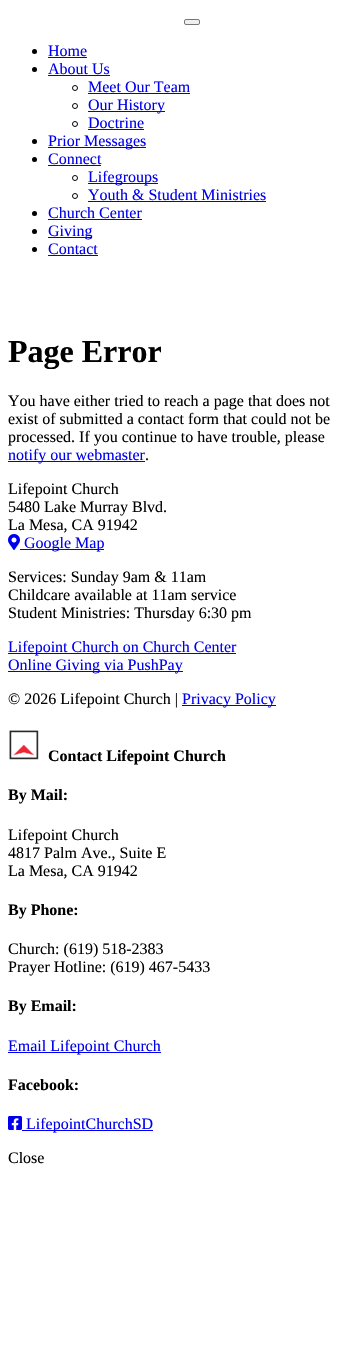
#include "include/core/SkBlurTypes.h"
#include "include/core/SkCanvas.h"
#include "include/core/SkData.h"
#include "include/core/SkFont.h"
#include "include/core/SkFontMgr.h"
#include "include/core/SkImage.h"
#include "include/core/SkMaskFilter.h"
#include "include/core/SkPaint.h"
#include "include/core/SkPathBuilder.h"
#include "include/core/SkTextBlob.h"
#include "include/effects/SkDashPathEffect.h"
#include "include/effects/SkGradientShader.h"
#include "include/utils/SkParsePath.h"

extern sk_sp<SkFontMgr> fontMgr;

void draw(SkCanvas* canvas) {
    SkPaint p;
    p.setAntiAlias(true);
    auto font = [&](const char* family, int weight, float size, bool italic = false) {
        SkFontStyle style(weight, SkFontStyle::kNormal_Width,
            italic ? SkFontStyle::kItalic_Slant : SkFontStyle::kUpright_Slant);
        SkFont result(fontMgr->matchFamilyStyle(family, style), size);
        result.setSubpixel(true);
        return result;
    };
    auto drawPhoto = [&](const char* path, float l, float t, float r, float b) {
        auto image = SkImages::DeferredFromEncodedData(SkData::MakeFromFileName(path));
        canvas->drawImageRect(image, SkRect::MakeLTRB(l, t, r, b), SkSamplingOptions());
    };
    canvas->clear(0xFFFFFFFF);
    p.setColor(0xFFEFEFEF);
    canvas->drawRoundRect(SkRect::MakeLTRB(184.5f, 19.5f, 199.5f, 24.5f), 1.5f, 1.5f, p);
    p.setStyle(SkPaint::kStroke_Style);
    p.setStrokeWidth(1);
    p.setColor(0xFF767676);
    canvas->drawRoundRect(SkRect::MakeLTRB(184.5f, 19.5f, 199.5f, 24.5f), 1.5f, 1.5f, p);
    p.setStyle(SkPaint::kFill_Style);
    p.setColor(0xFF000000);
    canvas->drawCircle(34.5f, 51.5f, 2.5f, p);
    auto font1 = font("Liberation Serif", 400, 16);
    p.setColor(0xFF0000EE);
    canvas->drawString("Home", 48, 56, font1, p);
    canvas->drawRect(SkRect::MakeLTRB(48, 57, 87, 58), p);
    p.setColor(0xFF000000);
    canvas->drawCircle(34.5f, 69.5f, 2.5f, p);
    p.setColor(0xFF0000EE);
    canvas->drawString("About Us", 48, 74, font1, p);
    canvas->drawRect(SkRect::MakeLTRB(48, 75, 110, 76), p);
    p.setStyle(SkPaint::kStroke_Style);
    p.setColor(0xFF000000);
    canvas->drawCircle(75, 88, 2.5f, p);
    p.setStyle(SkPaint::kFill_Style);
    p.setColor(0xFF0000EE);
    canvas->drawString("Meet Our Team", 88, 92, font1, p);
    canvas->drawRect(SkRect::MakeLTRB(88, 93, 190, 94), p);
    p.setStyle(SkPaint::kStroke_Style);
    p.setColor(0xFF000000);
    canvas->drawCircle(75, 106, 2.5f, p);
    p.setStyle(SkPaint::kFill_Style);
    p.setColor(0xFF0000EE);
    canvas->drawRect(SkRect::MakeLTRB(88, 111, 165, 112), p);
    canvas->drawString("Our History", 88, 110, font1, p);
    p.setStyle(SkPaint::kStroke_Style);
    p.setColor(0xFF000000);
    canvas->drawCircle(75, 124, 2.5f, p);
    p.setStyle(SkPaint::kFill_Style);
    p.setColor(0xFF0000EE);
    canvas->drawString("Doctrine", 88, 128, font1, p);
    canvas->drawRect(SkRect::MakeLTRB(88, 129, 144, 130), p);
    p.setColor(0xFF000000);
    canvas->drawCircle(34.5f, 141.5f, 2.5f, p);
    p.setColor(0xFF0000EE);
    canvas->drawRect(SkRect::MakeLTRB(48, 147, 146, 148), p);
    canvas->drawString("Prior Messages", 48, 146, font1, p);
    p.setColor(0xFF000000);
    canvas->drawCircle(34.5f, 159.5f, 2.5f, p);
    p.setColor(0xFF0000EE);
    canvas->drawString("Connect", 48, 164, font1, p);
    canvas->drawRect(SkRect::MakeLTRB(48, 165, 101, 166), p);
    p.setStyle(SkPaint::kStroke_Style);
    p.setColor(0xFF000000);
    canvas->drawCircle(75, 178, 2.5f, p);
    p.setStyle(SkPaint::kFill_Style);
    p.setColor(0xFF0000EE);
    canvas->drawRect(SkRect::MakeLTRB(88, 183, 158, 184), p);
    canvas->drawString("Lifegroups", 88, 182, font1, p);
    p.setStyle(SkPaint::kStroke_Style);
    p.setColor(0xFF000000);
    canvas->drawCircle(75, 196, 2.5f, p);
    p.setStyle(SkPaint::kFill_Style);
    p.setColor(0xFF0000EE);
    canvas->drawString("Youth & Student Ministries", 88, 200, font1, p);
    canvas->drawRect(SkRect::MakeLTRB(88, 201, 266, 202), p);
    p.setColor(0xFF000000);
    canvas->drawCircle(34.5f, 213.5f, 2.5f, p);
    p.setColor(0xFF0000EE);
    canvas->drawString("Church Center", 48, 218, font1, p);
    canvas->drawRect(SkRect::MakeLTRB(48, 219, 142, 220), p);
    p.setColor(0xFF000000);
    canvas->drawCircle(34.5f, 231.5f, 2.5f, p);
    p.setColor(0xFF0000EE);
    canvas->drawRect(SkRect::MakeLTRB(48, 237, 92, 238), p);
    canvas->drawString("Giving", 48, 236, font1, p);
    p.setColor(0xFF000000);
    canvas->drawCircle(34.5f, 249.5f, 2.5f, p);
    p.setColor(0xFF0000EE);
    canvas->drawString("Contact", 48, 254, font1, p);
    canvas->drawRect(SkRect::MakeLTRB(48, 255, 98, 256), p);
    auto font2 = font("Liberation Serif", 700, 32);
    p.setColor(0xFF000000);
    canvas->drawString("Page Error", 8, 362, font2, p);
    {
        const struct { const char* s; float x, y; } items[] = {
            {"You have either tried to reach a page that does not", 8, 406},
            {"exist of submitted a contact form that could not be", 8, 424},
            {"processed. If you continue to have trouble, please", 8, 442},
        };
        for (auto [s, x, y] : items) {
            canvas->drawString(s, x, y, font1, p);
        }
    }
    p.setColor(0xFF0000EE);
    canvas->drawRect(SkRect::MakeLTRB(8, 461, 145, 462), p);
    canvas->drawString("notify our webmaster", 8, 460, font1, p);
    p.setColor(0xFF000000);
    {
        const struct { const char* s; float x, y; } items[] = {
            {".", 145, 460},
            {"Lifepoint Church", 8, 494},
            {"5480 Lake Murray Blvd.", 8, 512},
            {"La Mesa, CA 91942", 8, 530},
        };
        for (auto [s, x, y] : items) {
            canvas->drawString(s, x, y, font1, p);
        }
    }
    drawPhoto("media/1.png", 8, 534, 20, 550);
    p.setColor(0xFF0000EE);
    canvas->drawRect(SkRect::MakeLTRB(20, 549, 104, 550), p);
    canvas->drawString("Google Map", 24, 548, font1, p);
    p.setColor(0xFF000000);
    {
        const struct { const char* s; float x, y; } items[] = {
            {"Services: Sunday 9am & 11am", 8, 582},
            {"Childcare available at 11am service", 8, 600},
            {"Student Ministries: Thursday 6:30 pm", 8, 618},
        };
        for (auto [s, x, y] : items) {
            canvas->drawString(s, x, y, font1, p);
        }
    }
    p.setColor(0xFF0000EE);
    canvas->drawRect(SkRect::MakeLTRB(8, 653, 236, 654), p);
    canvas->drawString("Lifepoint Church on Church Center", 8, 652, font1, p);
    canvas->drawRect(SkRect::MakeLTRB(8, 671, 183, 672), p);
    canvas->drawString("Online Giving via PushPay", 8, 670, font1, p);
    p.setColor(0xFF000000);
    canvas->drawString("© 2026 Lifepoint Church |", 8, 704, font1, p);
    p.setColor(0xFF0000EE);
    canvas->drawRect(SkRect::MakeLTRB(182, 705, 276, 706), p);
    canvas->drawString("Privacy Policy", 182, 704, font1, p);
    drawPhoto("media/2.png", 9, 730, 39, 760);
    auto font3 = font("Liberation Serif", 700, 16);
    p.setColor(0xFF000000);
    canvas->drawString("Contact Lifepoint Church", 48, 761, font3, p);
    canvas->drawString("By Mail:", 8, 800, font3, p);
    {
        const struct { const char* s; float x, y; } items[] = {
            {"Lifepoint Church", 8, 840},
            {"4817 Palm Ave., Suite E", 8, 858},
            {"La Mesa, CA 91942", 8, 876},
        };
        for (auto [s, x, y] : items) {
            canvas->drawString(s, x, y, font1, p);
        }
    }
    canvas->drawString("By Phone:", 8, 915, font3, p);
    canvas->drawString("Church: (619) 518-2383", 8, 954, font1, p);
    canvas->drawString("Prayer Hotline: (619) 467-5433", 8, 972, font1, p);
    canvas->drawString("By Email:", 8, 1011, font3, p);
    p.setColor(0xFF0000EE);
    canvas->drawRect(SkRect::MakeLTRB(8, 1052, 161, 1053), p);
    canvas->drawString("Email Lifepoint Church", 8, 1051, font1, p);
    p.setColor(0xFF000000);
    canvas->drawString("Facebook:", 8, 1090, font3, p);
    drawPhoto("media/3.png", 8, 1116, 22, 1130);
    p.setColor(0xFF0000EE);
    canvas->drawRect(SkRect::MakeLTRB(22, 1130, 153, 1131), p);
    canvas->drawString("LifepointChurchSD", 26, 1129, font1, p);
    p.setColor(0xFF000000);
    canvas->drawString("Close", 8, 1163, font1, p);
}
